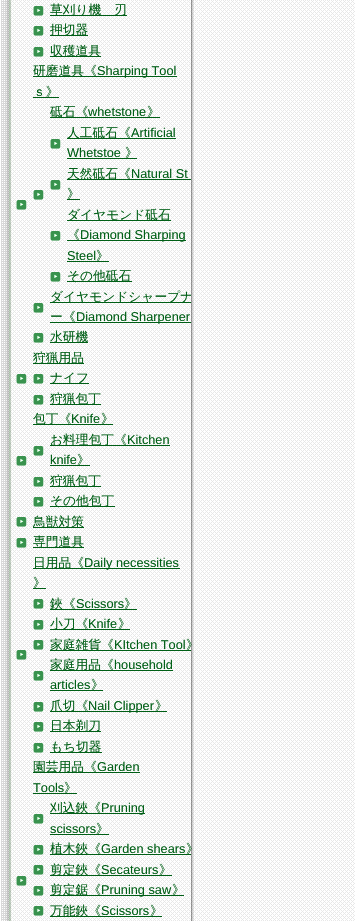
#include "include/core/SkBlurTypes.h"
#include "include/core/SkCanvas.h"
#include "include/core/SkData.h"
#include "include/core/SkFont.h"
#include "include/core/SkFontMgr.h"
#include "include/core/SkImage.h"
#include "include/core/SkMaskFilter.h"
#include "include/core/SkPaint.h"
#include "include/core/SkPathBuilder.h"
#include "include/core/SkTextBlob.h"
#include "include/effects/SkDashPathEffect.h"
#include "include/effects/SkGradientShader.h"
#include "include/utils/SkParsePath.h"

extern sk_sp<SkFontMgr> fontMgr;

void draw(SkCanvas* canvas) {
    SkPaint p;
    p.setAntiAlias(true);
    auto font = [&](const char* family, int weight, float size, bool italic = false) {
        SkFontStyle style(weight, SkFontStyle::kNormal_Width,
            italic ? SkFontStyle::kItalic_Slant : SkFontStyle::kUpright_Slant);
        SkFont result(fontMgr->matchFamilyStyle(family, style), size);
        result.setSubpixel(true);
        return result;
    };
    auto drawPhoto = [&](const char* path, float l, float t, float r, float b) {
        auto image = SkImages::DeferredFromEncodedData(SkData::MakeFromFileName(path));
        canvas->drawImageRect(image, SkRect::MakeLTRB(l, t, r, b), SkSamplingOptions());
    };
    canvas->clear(0xFFFFFFFF);
    drawPhoto("media/1.png", 1, 0, 355, 921);
    drawPhoto("media/2.png", 33, 6, 44, 16);
    p.setColor(0xFF005F16);
    canvas->drawRect(SkRect::MakeLTRB(50, 15, 127, 16), p);
    auto font1 = font("WenQuanYi Zen Hei", 500, 12.75f);
    canvas->drawString("草刈り機　刃", 50, 14, font1, p);
    drawPhoto("media/3.png", 33, 26, 44, 36);
    canvas->drawRect(SkRect::MakeLTRB(50, 35, 88, 36), p);
    canvas->drawString("押切器", 50, 34, font1, p);
    drawPhoto("media/4.png", 33, 47, 44, 57);
    canvas->drawRect(SkRect::MakeLTRB(50, 56, 101, 57), p);
    canvas->drawString("収穫道具", 50, 55, font1, p);
    drawPhoto("media/5.png", 16, 200, 27, 210);
    canvas->drawRect(SkRect::MakeLTRB(33, 76, 177, 77), p);
    canvas->drawString("研磨道具《", 33, 75, font1, p);
    auto font2 = font("Liberation Sans", 400, 12.75f);
    canvas->drawString("Sharping Tool", 97, 75, font2, p);
    canvas->drawRect(SkRect::MakeLTRB(33, 97, 59, 98), p);
    canvas->drawString("ｓ》", 33, 96, font1, p);
    drawPhoto("media/6.png", 33, 190, 44, 200);
    canvas->drawRect(SkRect::MakeLTRB(50, 117, 160, 118), p);
    canvas->drawString("砥石《", 50, 116, font1, p);
    canvas->drawString("whetstone", 88, 116, font2, p);
    canvas->drawString("》", 147, 116, font1, p);
    drawPhoto("media/7.png", 50, 139, 61, 149);
    canvas->drawRect(SkRect::MakeLTRB(67, 138, 176, 139), p);
    canvas->drawString("人工砥石《", 67, 137, font1, p);
    canvas->drawString("Artificial", 131, 137, font2, p);
    canvas->drawString("Whetstoe", 67, 157, font2, p);
    canvas->drawRect(SkRect::MakeLTRB(67, 158, 137, 159), p);
    canvas->drawString("》", 125, 157, font1, p);
    drawPhoto("media/8.png", 50, 180, 61, 190);
    canvas->drawRect(SkRect::MakeLTRB(67, 179, 191, 180), p);
    canvas->drawString("天然砥石《", 67, 178, font1, p);
    canvas->drawString("Natural St", 131, 178, font2, p);
    canvas->drawRect(SkRect::MakeLTRB(67, 199, 80, 200), p);
    canvas->drawString("》", 67, 198, font1, p);
    drawPhoto("media/7.png", 50, 231, 61, 241);
    canvas->drawRect(SkRect::MakeLTRB(67, 220, 171, 221), p);
    canvas->drawString("ダイヤモンド砥石", 67, 219, font1, p);
    canvas->drawRect(SkRect::MakeLTRB(67, 240, 186, 241), p);
    canvas->drawString("《", 67, 239, font1, p);
    canvas->drawString("Diamond Sharping", 80, 239, font2, p);
    canvas->drawString("Steel", 67, 260, font2, p);
    canvas->drawRect(SkRect::MakeLTRB(67, 261, 109, 262), p);
    canvas->drawString("》", 96, 260, font1, p);
    drawPhoto("media/8.png", 50, 272, 61, 282);
    canvas->drawRect(SkRect::MakeLTRB(67, 281, 132, 282), p);
    canvas->drawString("その他砥石", 67, 280, font1, p);
    drawPhoto("media/9.png", 33, 303, 44, 313);
    canvas->drawRect(SkRect::MakeLTRB(50, 302, 191, 303), p);
    canvas->save();
    canvas->clipRect(SkRect::MakeLTRB(11, 0, 191, 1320));
    canvas->drawString("ダイヤモンドシャープナ", 50, 301, font1, p);
    canvas->restore();
    canvas->drawRect(SkRect::MakeLTRB(50, 322, 191, 323), p);
    canvas->drawString("ー《", 50, 321, font1, p);
    canvas->drawString("Diamond Sharpener", 76, 321, font2, p);
    drawPhoto("media/10.png", 33, 333, 44, 343);
    canvas->drawRect(SkRect::MakeLTRB(50, 342, 88, 343), p);
    canvas->drawString("水研機", 50, 341, font1, p);
    drawPhoto("media/11.png", 16, 374, 27, 384);
    canvas->drawRect(SkRect::MakeLTRB(33, 363, 84, 364), p);
    canvas->drawString("狩猟用品", 33, 362, font1, p);
    drawPhoto("media/12.png", 33, 374, 44, 384);
    canvas->drawRect(SkRect::MakeLTRB(50, 383, 89, 384), p);
    canvas->drawString("ナイフ", 50, 382, font1, p);
    drawPhoto("media/9.png", 33, 395, 44, 405);
    canvas->drawRect(SkRect::MakeLTRB(50, 404, 101, 405), p);
    canvas->drawString("狩猟包丁", 50, 403, font1, p);
    drawPhoto("media/5.png", 16, 456, 27, 466);
    canvas->drawRect(SkRect::MakeLTRB(33, 424, 113, 425), p);
    canvas->drawString("包丁《", 33, 423, font1, p);
    canvas->drawString("Knife", 71, 423, font2, p);
    canvas->drawString("》", 101, 423, font1, p);
    drawPhoto("media/3.png", 33, 446, 44, 456);
    canvas->drawRect(SkRect::MakeLTRB(50, 445, 170, 446), p);
    canvas->drawString("お料理包丁《", 50, 444, font1, p);
    canvas->drawString("Kitchen", 127, 444, font2, p);
    canvas->drawString("knife", 50, 464, font2, p);
    canvas->drawRect(SkRect::MakeLTRB(50, 465, 90, 466), p);
    canvas->drawString("》", 77, 464, font1, p);
    drawPhoto("media/13.png", 33, 477, 44, 487);
    canvas->drawRect(SkRect::MakeLTRB(50, 486, 101, 487), p);
    canvas->drawString("狩猟包丁", 50, 485, font1, p);
    drawPhoto("media/13.png", 33, 497, 44, 507);
    canvas->drawRect(SkRect::MakeLTRB(50, 506, 115, 507), p);
    canvas->drawString("その他包丁", 50, 505, font1, p);
    drawPhoto("media/14.png", 16, 517, 27, 527);
    canvas->drawRect(SkRect::MakeLTRB(33, 527, 84, 528), p);
    canvas->drawString("鳥獣対策", 33, 526, font1, p);
    drawPhoto("media/15.png", 16, 538, 27, 548);
    canvas->drawRect(SkRect::MakeLTRB(33, 547, 84, 548), p);
    canvas->drawString("専門道具", 33, 546, font1, p);
    drawPhoto("media/15.png", 16, 650, 27, 660);
    canvas->drawRect(SkRect::MakeLTRB(33, 568, 180, 569), p);
    canvas->drawString("日用品《", 33, 567, font1, p);
    canvas->drawString("Daily necessities", 84, 567, font2, p);
    canvas->drawRect(SkRect::MakeLTRB(33, 588, 46, 589), p);
    canvas->drawString("》", 33, 587, font1, p);
    drawPhoto("media/4.png", 33, 599, 44, 609);
    canvas->drawRect(SkRect::MakeLTRB(50, 609, 137, 610), p);
    canvas->drawString("鋏《", 50, 608, font1, p);
    canvas->drawString("Scissors", 76, 608, font2, p);
    canvas->drawString("》", 124, 608, font1, p);
    drawPhoto("media/16.png", 33, 620, 44, 630);
    canvas->drawRect(SkRect::MakeLTRB(50, 629, 130, 630), p);
    canvas->drawString("小刀《", 50, 628, font1, p);
    canvas->drawString("Knife", 88, 628, font2, p);
    canvas->drawString("》", 118, 628, font1, p);
    drawPhoto("media/16.png", 33, 640, 44, 650);
    canvas->drawRect(SkRect::MakeLTRB(50, 650, 191, 651), p);
    canvas->drawString("家庭雑貨《", 50, 649, font1, p);
    canvas->drawString("KItchen Tool", 114, 649, font2, p);
    canvas->drawString("》", 186, 649, font1, p);
    drawPhoto("media/4.png", 33, 671, 44, 681);
    canvas->drawRect(SkRect::MakeLTRB(50, 670, 173, 671), p);
    canvas->drawString("家庭用品《", 50, 669, font1, p);
    canvas->drawString("household", 114, 669, font2, p);
    canvas->drawString("articles", 50, 689, font2, p);
    canvas->drawRect(SkRect::MakeLTRB(50, 690, 103, 691), p);
    canvas->drawString("》", 91, 689, font1, p);
    drawPhoto("media/6.png", 33, 702, 44, 712);
    canvas->drawRect(SkRect::MakeLTRB(50, 711, 167, 712), p);
    canvas->drawString("爪切《", 50, 710, font1, p);
    canvas->drawString("Nail Clipper", 88, 710, font2, p);
    canvas->drawString("》", 155, 710, font1, p);
    drawPhoto("media/6.png", 33, 722, 44, 732);
    canvas->drawRect(SkRect::MakeLTRB(50, 731, 101, 732), p);
    canvas->drawString("日本剃刀", 50, 730, font1, p);
    drawPhoto("media/9.png", 33, 743, 44, 753);
    canvas->drawRect(SkRect::MakeLTRB(50, 752, 102, 753), p);
    canvas->drawString("もち切器", 50, 751, font1, p);
    drawPhoto("media/5.png", 16, 876, 27, 886);
    canvas->drawRect(SkRect::MakeLTRB(33, 772, 140, 773), p);
    canvas->drawString("園芸用品《", 33, 771, font1, p);
    canvas->drawString("Garden", 97, 771, font2, p);
    canvas->drawString("Tools", 33, 792, font2, p);
    canvas->drawRect(SkRect::MakeLTRB(33, 793, 77, 794), p);
    canvas->drawString("》", 64, 792, font1, p);
    drawPhoto("media/6.png", 33, 814, 44, 824);
    canvas->drawRect(SkRect::MakeLTRB(50, 813, 145, 814), p);
    canvas->drawString("刈込鋏《", 50, 812, font1, p);
    canvas->drawString("Pruning", 101, 812, font2, p);
    canvas->drawString("scissors", 50, 833, font2, p);
    canvas->drawRect(SkRect::MakeLTRB(50, 834, 109, 835), p);
    canvas->drawString("》", 96, 833, font1, p);
    drawPhoto("media/17.png", 33, 845, 44, 855);
    canvas->drawRect(SkRect::MakeLTRB(50, 854, 191, 855), p);
    canvas->drawString("植木鋏《", 50, 853, font1, p);
    canvas->drawString("Garden shears", 101, 853, font2, p);
    canvas->drawString("》", 186, 853, font1, p);
    drawPhoto("media/10.png", 33, 865, 44, 875);
    canvas->drawRect(SkRect::MakeLTRB(50, 875, 172, 876), p);
    canvas->drawString("剪定鋏《", 50, 874, font1, p);
    canvas->drawString("Secateurs", 101, 874, font2, p);
    canvas->drawString("》", 159, 874, font1, p);
    drawPhoto("media/3.png", 33, 886, 44, 896);
    canvas->drawRect(SkRect::MakeLTRB(50, 895, 184, 896), p);
    canvas->drawString("剪定鋸《", 50, 894, font1, p);
    canvas->drawString("Pruning saw", 101, 894, font2, p);
    canvas->drawString("》", 172, 894, font1, p);
    drawPhoto("media/12.png", 33, 906, 44, 916);
    canvas->drawRect(SkRect::MakeLTRB(50, 916, 162, 917), p);
    canvas->drawString("万能鋏《", 50, 915, font1, p);
    canvas->drawString("Scissors", 101, 915, font2, p);
    canvas->drawString("》", 150, 915, font1, p);
}
